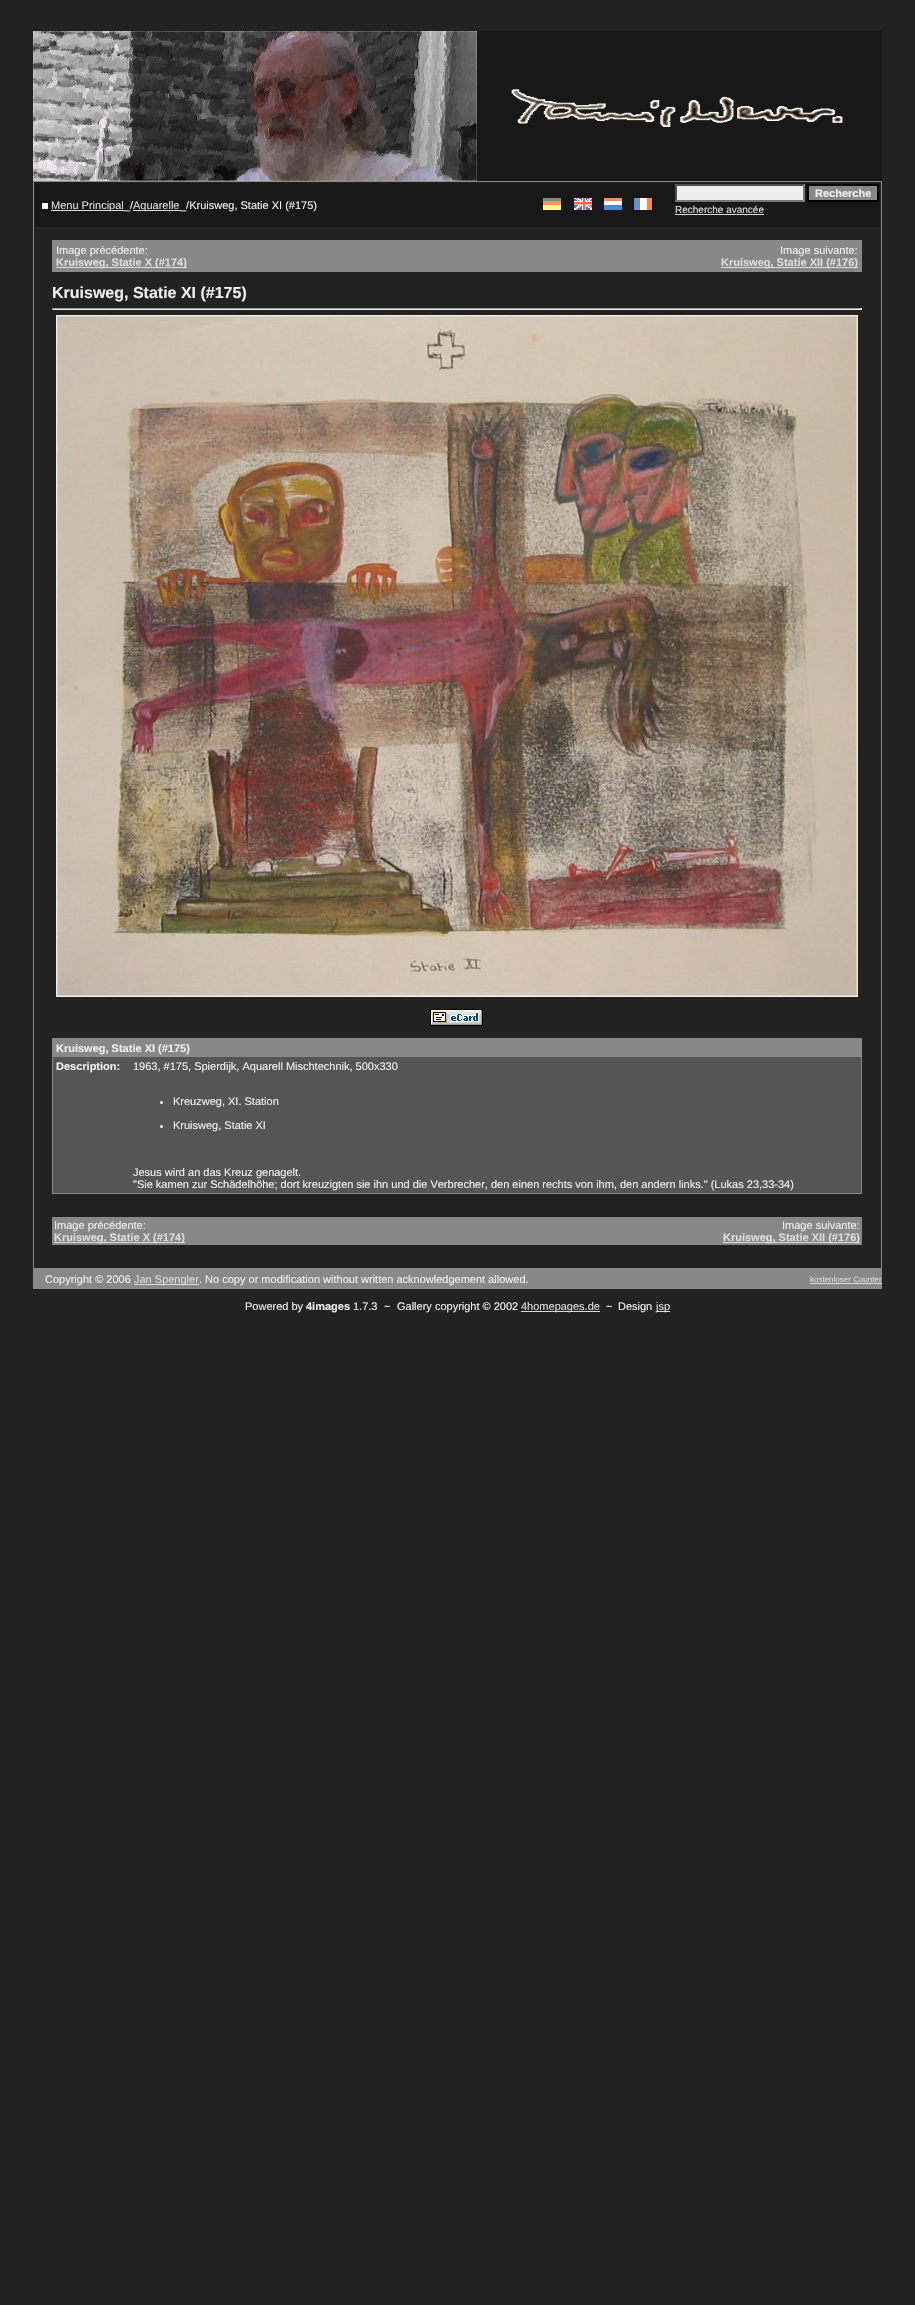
#include "include/core/SkBlurTypes.h"
#include "include/core/SkCanvas.h"
#include "include/core/SkData.h"
#include "include/core/SkFont.h"
#include "include/core/SkFontMgr.h"
#include "include/core/SkImage.h"
#include "include/core/SkMaskFilter.h"
#include "include/core/SkPaint.h"
#include "include/core/SkPathBuilder.h"
#include "include/core/SkTextBlob.h"
#include "include/effects/SkDashPathEffect.h"
#include "include/effects/SkGradientShader.h"
#include "include/utils/SkParsePath.h"

extern sk_sp<SkFontMgr> fontMgr;

void draw(SkCanvas* canvas) {
    SkPaint p;
    p.setAntiAlias(true);
    auto font = [&](const char* family, int weight, float size, bool italic = false) {
        SkFontStyle style(weight, SkFontStyle::kNormal_Width,
            italic ? SkFontStyle::kItalic_Slant : SkFontStyle::kUpright_Slant);
        SkFont result(fontMgr->matchFamilyStyle(family, style), size);
        result.setSubpixel(true);
        return result;
    };
    auto drawPhoto = [&](const char* path, float l, float t, float r, float b) {
        auto image = SkImages::DeferredFromEncodedData(SkData::MakeFromFileName(path));
        canvas->drawImageRect(image, SkRect::MakeLTRB(l, t, r, b), SkSamplingOptions());
    };
    canvas->clear(0xFF222222);
    p.setColor(0xFF181818);
    canvas->drawRect(SkRect::MakeLTRB(477, 31, 882, 181), p);
    drawPhoto("media/1.png", 33, 31, 477, 181);
    drawPhoto("media/2.png", 511, 89, 843, 127);
    {
        const struct { float l, t, r, b; SkColor color; } items[] = {
            {33, 181, 882, 1289, 0xFF888888},
            {34, 182, 881, 1268, 0xFF222222},
            {35, 183, 880, 227, 0xFF181818},
            {42, 203, 48, 209, 0xFFFFFFFF},
            {51, 210, 124, 211, 0xFFDDDDDD},
        };
        for (auto [l, t, r, b, color] : items) {
            p.setColor(color);
            canvas->drawRect(SkRect::MakeLTRB(l, t, r, b), p);
        }
    }
    auto font1 = font("Liberation Sans", 400, 11);
    canvas->drawString("Menu Principal", 51, 209, font1, p);
    p.setColor(0xFFEEEEEE);
    canvas->drawString("_/", 124, 209, font1, p);
    p.setColor(0xFFDDDDDD);
    canvas->drawRect(SkRect::MakeLTRB(133, 210, 180, 211), p);
    canvas->drawString("Aquarelle", 133, 209, font1, p);
    p.setColor(0xFFEEEEEE);
    canvas->drawString("_/Kruisweg, Statie XI (#175)", 180, 209, font1, p);
    drawPhoto("media/3.png", 543, 198, 561, 210);
    drawPhoto("media/4.png", 574, 198, 592, 210);
    drawPhoto("media/5.png", 604, 198, 622, 210);
    drawPhoto("media/6.png", 634, 198, 652, 210);
    canvas->drawRect(SkRect::MakeLTRB(675, 184, 805, 202), p);
    p.setColor(0xFF4F4F4F);
    canvas->drawPath(SkPathBuilder().moveTo(675, 184).lineTo(805, 184).lineTo(803, 186).lineTo(677, 186).close().detach(), p);
    p.setColor(0xFF767676);
    canvas->drawPath(SkPathBuilder().moveTo(805, 184).lineTo(805, 202).lineTo(803, 200).lineTo(803, 186).close().detach(), p);
    canvas->drawPath(SkPathBuilder().moveTo(805, 202).lineTo(675, 202).lineTo(677, 200).lineTo(803, 200).close().detach(), p);
    p.setColor(0xFF4F4F4F);
    canvas->drawPath(SkPathBuilder().moveTo(675, 202).lineTo(675, 184).lineTo(677, 186).lineTo(677, 200).close().detach(), p);
    p.setColor(0xFF888888);
    canvas->drawRect(SkRect::MakeLTRB(808, 185, 878, 201), p);
    p.setStyle(SkPaint::kStroke_Style);
    p.setStrokeWidth(2);
    p.setColor(0xFF000000);
    canvas->drawRect(SkRect::MakeLTRB(808, 185, 878, 201), p);
    auto font2 = font("Liberation Sans", 700, 11);
    p.setStyle(SkPaint::kFill_Style);
    p.setColor(0xFFEEEEEE);
    canvas->drawString("Recherche", 815, 197, font2, p);
    auto font3 = font("Liberation Sans", 400, 10);
    p.setColor(0xFFDDDDDD);
    canvas->drawString("Recherche avancée", 675, 213, font3, p);
    canvas->drawRect(SkRect::MakeLTRB(675, 214, 764, 215), p);
    p.setColor(0xFF888888);
    canvas->drawRect(SkRect::MakeLTRB(52, 240, 862, 272), p);
    p.setColor(0xFFEEEEEE);
    canvas->drawString("Image précédente:", 56, 254, font1, p);
    p.setColor(0xFFDDDDDD);
    canvas->drawRect(SkRect::MakeLTRB(56, 267, 187, 268), p);
    canvas->drawString("Kruisweg, Statie X (#174)", 56, 266, font2, p);
    p.setColor(0xFFEEEEEE);
    canvas->drawString("Image suivante:", 780, 254, font1, p);
    p.setColor(0xFFDDDDDD);
    canvas->drawRect(SkRect::MakeLTRB(721, 267, 858, 268), p);
    canvas->drawString("Kruisweg, Statie XII (#176)", 721, 266, font2, p);
    auto font4 = font("Liberation Sans", 700, 16);
    p.setColor(0xFFEEEEEE);
    canvas->drawString("Kruisweg, Statie XI (#175)", 52, 298, font4, p);
    {
        const struct { float l, t, r, b; SkColor color; } items[] = {
            {52, 309, 862, 310, 0xFFEEEEEE},
            {52, 308, 862, 309, 0xFF9F9F9F},
            {861, 308, 862, 310, 0xFFEEEEEE},
            {52, 308, 53, 310, 0xFF9F9F9F},
        };
        for (auto [l, t, r, b, color] : items) {
            p.setColor(color);
            canvas->drawRect(SkRect::MakeLTRB(l, t, r, b), p);
        }
    }
    p.setStyle(SkPaint::kStroke_Style);
    p.setStrokeWidth(1);
    p.setColor(0xFFEEEEEE);
    canvas->drawRect(SkRect::MakeLTRB(56.5f, 315.5f, 857.5f, 996.5f), p);
    drawPhoto("media/7.png", 57, 316, 857, 996);
    drawPhoto("media/8.png", 430, 1009, 483, 1026);
    p.setStyle(SkPaint::kFill_Style);
    p.setColor(0xFF888888);
    canvas->drawRect(SkRect::MakeLTRB(52, 1038, 862, 1194), p);
    p.setColor(0xFFEEEEEE);
    canvas->drawString("Kruisweg, Statie XI (#175)", 56, 1052, font2, p);
    p.setColor(0xFF555555);
    canvas->drawRect(SkRect::MakeLTRB(53, 1057, 861, 1193), p);
    p.setColor(0xFFEEEEEE);
    canvas->drawString("Description:", 56, 1070, font2, p);
    canvas->drawString("1963, #175, Spierdijk, Aquarell Mischtechnik, 500x330", 133, 1070, font1, p);
    canvas->drawCircle(161.5f, 1102.5f, 1.5f, p);
    canvas->drawString("Kreuzweg, XI. Station", 173, 1105, font1, p);
    canvas->drawCircle(161.5f, 1126.5f, 1.5f, p);
    {
        const struct { const char* s; float x, y; } items[] = {
            {"Kruisweg, Statie XI", 173, 1129},
            {"Jesus wird an das Kreuz genagelt.", 133, 1176},
            {"\"Sie kamen zur Schädelhöhe; dort kreuzigten sie ihn und die Verbrecher, den einen rechts von ihm, den andern links.\" (Lukas 23,33-34)", 133, 1188},
        };
        for (auto [s, x, y] : items) {
            canvas->drawString(s, x, y, font1, p);
        }
    }
    p.setColor(0xFF888888);
    canvas->drawRect(SkRect::MakeLTRB(52, 1217, 862, 1245), p);
    p.setColor(0xFFEEEEEE);
    canvas->drawString("Image précédente:", 54, 1229, font1, p);
    p.setColor(0xFFDDDDDD);
    canvas->drawRect(SkRect::MakeLTRB(54, 1242, 185, 1243), p);
    canvas->drawString("Kruisweg, Statie X (#174)", 54, 1241, font2, p);
    p.setColor(0xFFEEEEEE);
    canvas->drawString("Image suivante:", 782, 1229, font1, p);
    p.setColor(0xFFDDDDDD);
    canvas->drawRect(SkRect::MakeLTRB(723, 1242, 860, 1243), p);
    canvas->drawString("Kruisweg, Statie XII (#176)", 723, 1241, font2, p);
    p.setColor(0xFFEEEEEE);
    canvas->drawString("Copyright © 2006", 45, 1283, font1, p);
    p.setColor(0xFFDDDDDD);
    canvas->drawRect(SkRect::MakeLTRB(134, 1284, 199, 1285), p);
    canvas->drawString("Jan Spengler", 134, 1283, font1, p);
    p.setColor(0xFFEEEEEE);
    canvas->drawString(". No copy or modification without written acknowledgement allowed.", 199, 1283, font1, p);
    auto font5 = font("Liberation Sans", 400, 8);
    p.setColor(0xFFDDDDDD);
    canvas->drawString("kostenloser Counter", 810, 1282, font5, p);
    canvas->drawRect(SkRect::MakeLTRB(810, 1283, 882, 1284), p);
    p.setColor(0xFFEEEEEE);
    canvas->drawString("Powered by", 245, 1310, font1, p);
    canvas->drawString("4images", 306, 1310, font2, p);
    {
        const struct { const char* s; float x, y; } items[] = {
            {"1.7.3", 353, 1310},
            {"~", 384, 1310},
            {"Gallery copyright © 2002", 397, 1310},
        };
        for (auto [s, x, y] : items) {
            canvas->drawString(s, x, y, font1, p);
        }
    }
    p.setColor(0xFFDDDDDD);
    canvas->drawRect(SkRect::MakeLTRB(521, 1311, 600, 1312), p);
    canvas->drawString("4homepages.de", 521, 1310, font1, p);
    p.setColor(0xFFEEEEEE);
    canvas->drawString("~", 606, 1310, font1, p);
    canvas->drawString("Design", 618, 1310, font1, p);
    p.setColor(0xFFDDDDDD);
    canvas->drawRect(SkRect::MakeLTRB(656, 1311, 670, 1312), p);
    canvas->drawString("jsp", 656, 1310, font1, p);
}
